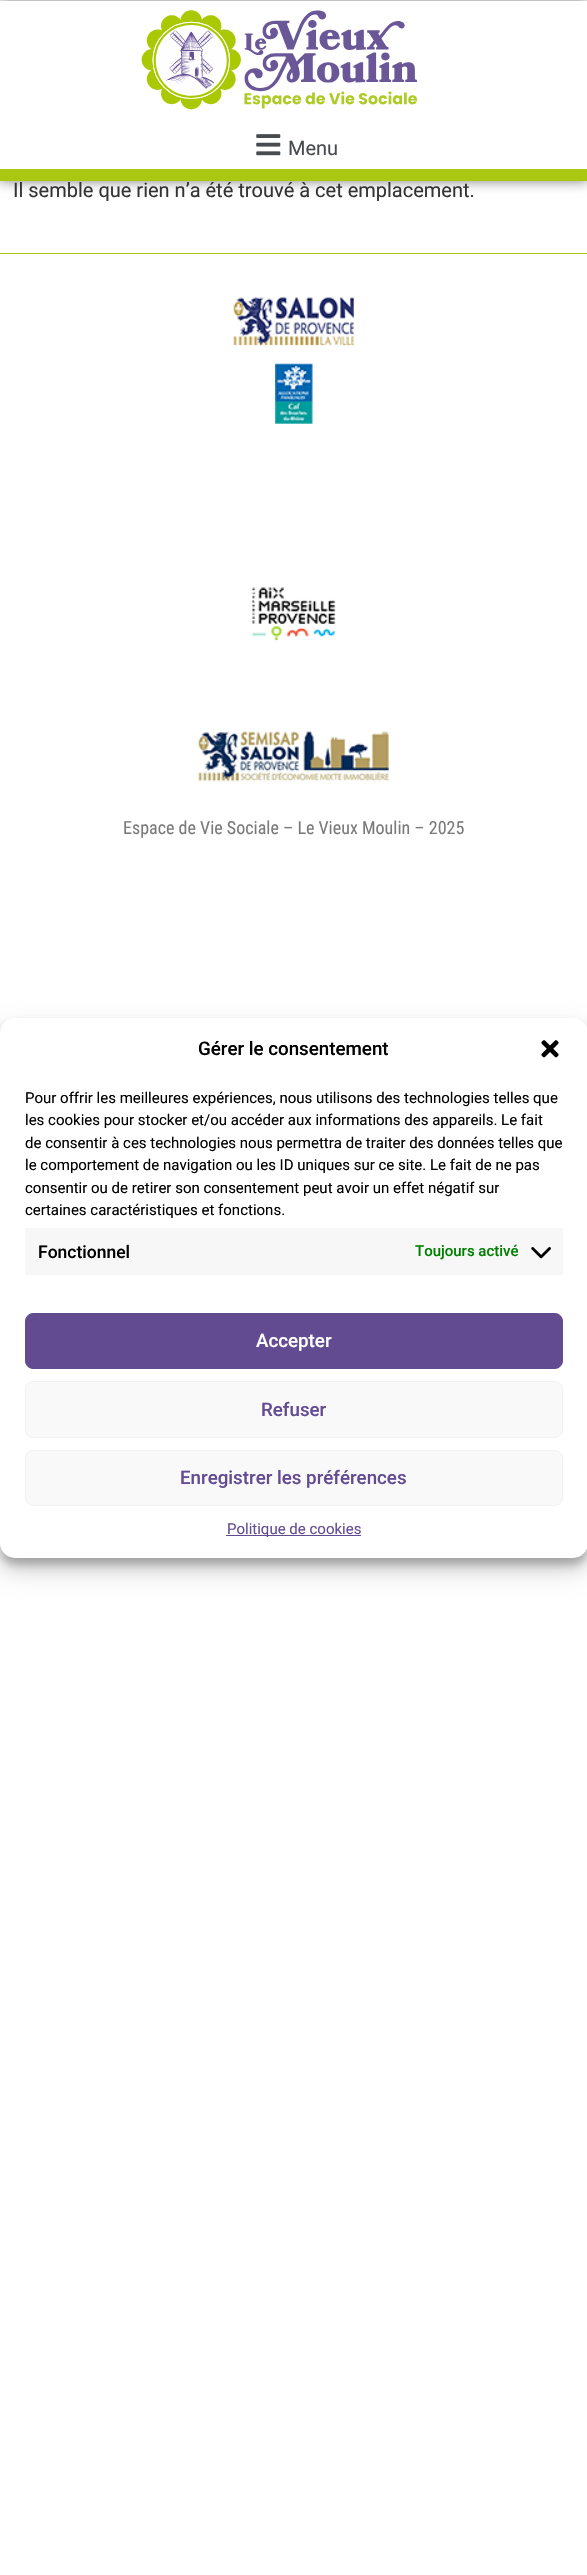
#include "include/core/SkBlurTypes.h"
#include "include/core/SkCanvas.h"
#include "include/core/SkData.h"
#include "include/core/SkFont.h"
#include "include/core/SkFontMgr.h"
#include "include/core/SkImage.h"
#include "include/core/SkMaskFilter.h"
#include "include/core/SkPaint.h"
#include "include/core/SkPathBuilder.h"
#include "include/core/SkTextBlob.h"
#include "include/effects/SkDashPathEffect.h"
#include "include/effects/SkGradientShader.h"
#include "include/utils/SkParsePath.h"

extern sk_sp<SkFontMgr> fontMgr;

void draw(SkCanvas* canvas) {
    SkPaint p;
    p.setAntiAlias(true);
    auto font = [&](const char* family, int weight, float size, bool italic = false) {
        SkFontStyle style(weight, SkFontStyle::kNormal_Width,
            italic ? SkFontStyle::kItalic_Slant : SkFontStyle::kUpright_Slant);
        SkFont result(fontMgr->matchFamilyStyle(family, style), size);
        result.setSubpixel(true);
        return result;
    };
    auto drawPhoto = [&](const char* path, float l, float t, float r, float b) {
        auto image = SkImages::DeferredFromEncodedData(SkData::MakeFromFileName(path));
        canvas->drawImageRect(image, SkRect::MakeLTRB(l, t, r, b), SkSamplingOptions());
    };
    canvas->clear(0xFFFFFFFF);
    p.setColor(0x80000000);
    p.setMaskFilter(SkMaskFilter::MakeBlur(kNormal_SkBlurStyle, 6));
    canvas->drawRect(SkRect::MakeLTRB(0, 1, 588, 181), p);
    p.setMaskFilter(nullptr);
    p.setColor(0xFFFFFFFF);
    canvas->drawRect(SkRect::MakeLTRB(0, 1, 587, 169), p);
    drawPhoto("media/1.png", 141, 10, 417, 110);
    drawPhoto("media/2.png", 256, 134, 281, 156);
    auto font1 = font("Roboto", 400, 20);
    p.setColor(0xFF494C4F);
    canvas->drawString("Menu", 288, 155, font1, p);
    p.setColor(0xFFAAC811);
    canvas->drawRect(SkRect::MakeLTRB(0, 169, 587, 181), p);
    p.setColor(0xFF333333);
    canvas->drawString("Il semble que rien n’a été trouvé à cet emplacement.", 13, 197, font1, p);
    p.setColor(0xFFAAC811);
    canvas->drawRect(SkRect::MakeLTRB(0, 253, 587, 254), p);
    drawPhoto("media/3.png", 233, 297, 354, 346);
    drawPhoto("media/4.png", 275, 363, 313, 424);
    drawPhoto("media/5.png", 252, 587, 336, 641);
    drawPhoto("media/6.png", 195, 731, 389, 784);
    auto font2 = font("Roboto Condensed", 400, 18);
    p.setColor(0xFF7A7A7A);
    canvas->drawString("Espace de Vie Sociale – Le Vieux Moulin – 2025", 123, 834, font2, p);
    p.setColor(0x3B000000);
    p.setMaskFilter(SkMaskFilter::MakeBlur(kNormal_SkBlurStyle, 4));
    canvas->drawRoundRect(SkRect::MakeLTRB(0, 1025, 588, 1565), 15, 15, p);
    p.setMaskFilter(nullptr);
    p.setColor(0x30000000);
    p.setMaskFilter(SkMaskFilter::MakeBlur(kNormal_SkBlurStyle, 12.5f));
    canvas->drawRoundRect(SkRect::MakeLTRB(0, 1030, 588, 1570), 15, 15, p);
    p.setMaskFilter(nullptr);
    p.setColor(0xFFFFFFFF);
    canvas->drawRoundRect(SkRect::MakeLTRB(0, 1018, 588, 1558), 15, 15, p);
    auto font3 = font("Roboto", 500, 18.75f);
    p.setColor(0xFF000000);
    canvas->drawString("Gérer le consentement", 198, 1055, font3, p);
    drawPhoto("media/7.png", 541, 1040, 559, 1058);
    auto font4 = font("Roboto", 400, 15);
    {
        const struct { const char* s; float x, y; } items[] = {
            {"Pour offrir les meilleures expériences, nous utilisons des technologies telles que", 25, 1103},
            {"les cookies pour stocker et/ou accéder aux informations des appareils. Le fait", 25, 1125},
            {"de consentir à ces technologies nous permettra de traiter des données telles que", 25, 1148},
            {"le comportement de navigation ou les ID uniques sur ce site. Le fait de ne pas", 25, 1170},
            {"consentir ou de retirer son consentement peut avoir un effet négatif sur", 25, 1193},
            {"certaines caractéristiques et fonctions.", 25, 1215},
        };
        for (auto [s, x, y] : items) {
            canvas->drawString(s, x, y, font4, p);
        }
    }
    p.setColor(0xFFF7F7F7);
    canvas->drawRect(SkRect::MakeLTRB(25, 1228, 563, 1275), p);
    auto font5 = font("Roboto", 500, 17.5f);
    p.setColor(0xFF000000);
    canvas->drawString("Fonctionnel", 38, 1258, font5, p);
    auto font6 = font("Roboto", 500, 15);
    p.setColor(0xFF008000);
    canvas->drawString("Toujours activé", 415, 1256, font6, p);
    drawPhoto("media/8.png", 531, 1247, 551, 1259);
    p.setColor(0xFF634B92);
    canvas->drawRoundRect(SkRect::MakeLTRB(25.5f, 1313.5f, 562.5f, 1368.5f), 7.5f, 7.5f, p);
    p.setStyle(SkPaint::kStroke_Style);
    p.setStrokeWidth(1);
    canvas->drawRoundRect(SkRect::MakeLTRB(25.5f, 1313.5f, 562.5f, 1368.5f), 7.5f, 7.5f, p);
    p.setStyle(SkPaint::kFill_Style);
    p.setColor(0xFFFFFFFF);
    canvas->drawString("Accepter", 256, 1347, font3, p);
    p.setColor(0xFFF9F9F9);
    canvas->drawRoundRect(SkRect::MakeLTRB(25.5f, 1381.5f, 562.5f, 1437.5f), 7.5f, 7.5f, p);
    p.setStyle(SkPaint::kStroke_Style);
    p.setColor(0xFFF2F2F2);
    canvas->drawRoundRect(SkRect::MakeLTRB(25.5f, 1381.5f, 562.5f, 1437.5f), 7.5f, 7.5f, p);
    p.setStyle(SkPaint::kFill_Style);
    p.setColor(0xFF634B92);
    canvas->drawString("Refuser", 261, 1416, font3, p);
    p.setColor(0xFFF9F9F9);
    canvas->drawRoundRect(SkRect::MakeLTRB(25.5f, 1450.5f, 562.5f, 1505.5f), 7.5f, 7.5f, p);
    p.setStyle(SkPaint::kStroke_Style);
    p.setColor(0xFFF2F2F2);
    canvas->drawRoundRect(SkRect::MakeLTRB(25.5f, 1450.5f, 562.5f, 1505.5f), 7.5f, 7.5f, p);
    p.setStyle(SkPaint::kFill_Style);
    p.setColor(0xFF634B92);
    canvas->drawString("Enregistrer les préférences", 180, 1484, font3, p);
    canvas->drawRect(SkRect::MakeLTRB(226, 1535, 361, 1536), p);
    canvas->drawString("Politique de cookies", 227, 1534, font4, p);
}
